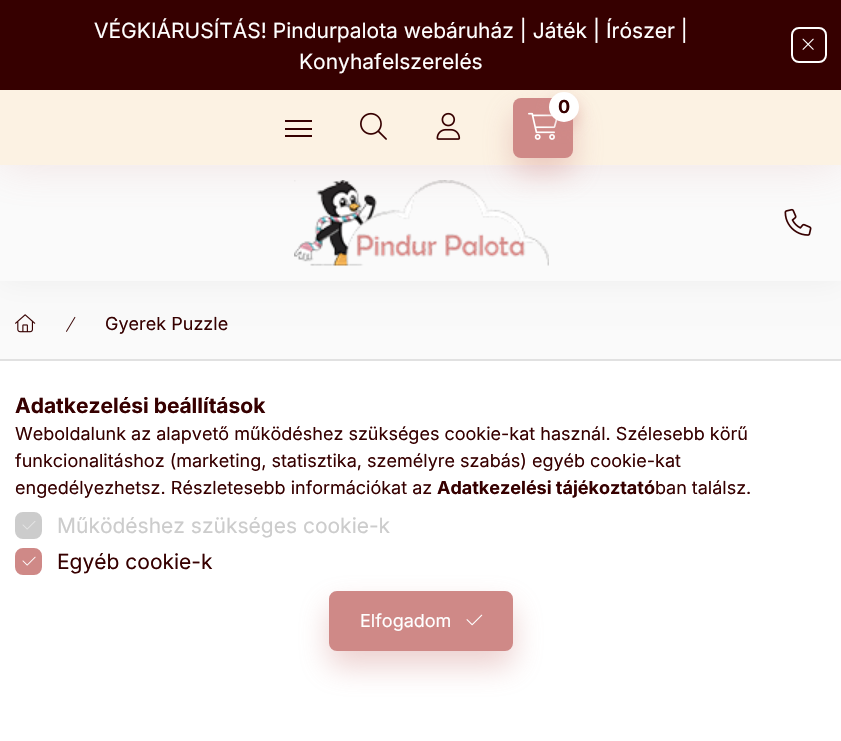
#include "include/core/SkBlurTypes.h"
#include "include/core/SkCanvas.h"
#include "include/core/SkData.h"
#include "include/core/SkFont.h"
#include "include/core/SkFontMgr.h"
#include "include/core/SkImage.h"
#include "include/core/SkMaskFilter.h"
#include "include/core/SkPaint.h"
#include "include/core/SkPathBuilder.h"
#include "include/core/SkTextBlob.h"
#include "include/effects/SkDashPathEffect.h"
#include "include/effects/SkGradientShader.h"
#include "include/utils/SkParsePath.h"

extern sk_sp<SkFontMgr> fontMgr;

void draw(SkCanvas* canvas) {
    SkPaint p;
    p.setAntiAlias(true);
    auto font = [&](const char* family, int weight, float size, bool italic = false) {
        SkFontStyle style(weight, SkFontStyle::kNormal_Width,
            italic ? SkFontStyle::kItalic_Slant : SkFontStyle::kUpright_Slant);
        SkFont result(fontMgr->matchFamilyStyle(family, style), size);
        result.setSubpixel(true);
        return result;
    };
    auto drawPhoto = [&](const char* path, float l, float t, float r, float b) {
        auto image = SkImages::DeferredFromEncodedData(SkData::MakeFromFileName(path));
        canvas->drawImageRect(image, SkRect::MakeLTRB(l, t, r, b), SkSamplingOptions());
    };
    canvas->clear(0xFFFAFAFA);
    drawPhoto("media/7.png", 15, 314, 36, 333);
    drawPhoto("media/8.png", 66, 316, 76, 332);
    p.setColor(0x0D000000);
    p.setMaskFilter(SkMaskFilter::MakeBlur(kNormal_SkBlurStyle, 15));
    canvas->drawRect(SkRect::MakeLTRB(0, 165, 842, 281), p);
    p.setMaskFilter(nullptr);
    p.setColor(0xFFFAFAFA);
    canvas->drawRect(SkRect::MakeLTRB(0, 165, 841, 281), p);
    drawPhoto("media/5.png", 294, 180, 549, 266);
    drawPhoto("media/6.png", 784, 208, 812, 236);
    p.setColor(0x33CF8987);
    p.setMaskFilter(SkMaskFilter::MakeBlur(kNormal_SkBlurStyle, 22.5f));
    canvas->drawRect(SkRect::MakeLTRB(0, 90, 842, 165), p);
    p.setMaskFilter(nullptr);
    p.setColor(0xFFFCF2E3);
    canvas->drawRect(SkRect::MakeLTRB(0, 90, 841, 165), p);
    p.setColor(0x66CF8987);
    p.setMaskFilter(SkMaskFilter::MakeBlur(kNormal_SkBlurStyle, 15));
    canvas->drawRoundRect(SkRect::MakeLTRB(513, 113, 573, 173), 8, 8, p);
    p.setMaskFilter(nullptr);
    p.setColor(0xFFCF8987);
    canvas->drawRoundRect(SkRect::MakeLTRB(513, 98, 573, 158), 8, 8, p);
    drawPhoto("media/2.png", 528, 112, 558, 140);
    p.setColor(0x66CF8987);
    p.setMaskFilter(SkMaskFilter::MakeBlur(kNormal_SkBlurStyle, 7.5f));
    canvas->drawRoundRect(SkRect::MakeLTRB(549, 99, 579, 129), 15, 15, p);
    p.setMaskFilter(nullptr);
    p.setColor(0xFF360000);
    canvas->drawRect(SkRect::MakeLTRB(0, 0, 841, 90), p);
    auto font1 = font("Inter", 400, 21);
    p.setColor(0xFFFFFFFF);
    canvas->drawString("VÉGKIÁRUSÍTÁS! Pindurpalota webáruház | Játék | Írószer |", 94, 38, font1, p);
    canvas->drawString("Konyhafelszerelés", 299, 69, font1, p);
    p.setStyle(SkPaint::kStroke_Style);
    p.setStrokeWidth(2);
    canvas->drawRoundRect(SkRect::MakeLTRB(792, 28, 826, 62), 7, 7, p);
    drawPhoto("media/1.png", 802, 38, 814, 50);
    p.setStyle(SkPaint::kFill_Style);
    canvas->drawCircle(564, 107, 15, p);
    auto font2 = font("Inter", 700, 18);
    p.setColor(0xFF360000);
    canvas->drawString("0", 558, 113, font2, p);
    {
        const struct { float l, t, r, b; SkColor color; } items[] = {
            {285, 120, 312, 122, 0xFF360000},
            {285, 128, 312, 130, 0xFF360000},
            {285, 135, 312, 137, 0xFF360000},
        };
        for (auto [l, t, r, b, color] : items) {
            p.setColor(color);
            canvas->drawRect(SkRect::MakeLTRB(l, t, r, b), p);
        }
    }
    drawPhoto("media/3.png", 360, 112, 387, 140);
    drawPhoto("media/4.png", 436, 112, 461, 140);
    auto font3 = font("Inter", 400, 18);
    canvas->drawString("Gyerek Puzzle", 105, 330, font3, p);
    p.setColor(0xFFFFFFFF);
    canvas->drawRect(SkRect::MakeLTRB(0, 361, 841, 741), p);
    p.setColor(0xFFE1E1E1);
    canvas->drawRect(SkRect::MakeLTRB(0, 359, 841, 361), p);
    auto font4 = font("Inter", 700, 21);
    p.setColor(0xFF360000);
    canvas->drawString("Adatkezelési beállítások", 15, 413, font4, p);
    {
        const struct { const char* s; float x, y; } items[] = {
            {"Weboldalunk az alapvető működéshez szükséges cookie-kat használ. Szélesebb körű", 15, 440},
            {"funkcionalitáshoz (marketing, statisztika, személyre szabás) egyéb cookie-kat", 15, 467},
            {"engedélyezhetsz. Részletesebb információkat az", 15, 494},
        };
        for (auto [s, x, y] : items) {
            canvas->drawString(s, x, y, font3, p);
        }
    }
    canvas->drawString("Adatkezelési tájékoztató", 437, 494, font2, p);
    canvas->drawString("ban találsz.", 655, 494, font3, p);
    p.setColor(0xFFCCCCCC);
    canvas->drawRoundRect(SkRect::MakeLTRB(16, 513, 41, 538), 7, 7, p);
    p.setStyle(SkPaint::kStroke_Style);
    canvas->drawRoundRect(SkRect::MakeLTRB(16, 513, 41, 538), 7, 7, p);
    drawPhoto("media/9.png", 22, 521, 36, 530);
    p.setStyle(SkPaint::kFill_Style);
    canvas->drawString("Működéshez szükséges cookie-k", 57, 533, font1, p);
    p.setColor(0xFFCF8987);
    canvas->drawRoundRect(SkRect::MakeLTRB(16, 549, 41, 574), 7, 7, p);
    p.setStyle(SkPaint::kStroke_Style);
    canvas->drawRoundRect(SkRect::MakeLTRB(16, 549, 41, 574), 7, 7, p);
    drawPhoto("media/10.png", 22, 556, 36, 566);
    p.setStyle(SkPaint::kFill_Style);
    p.setColor(0xFF360000);
    canvas->drawString("Egyéb cookie-k", 57, 569, font1, p);
    p.setColor(0x66CF8987);
    p.setMaskFilter(SkMaskFilter::MakeBlur(kNormal_SkBlurStyle, 15));
    canvas->drawRoundRect(SkRect::MakeLTRB(329, 606, 513, 666), 8, 8, p);
    p.setMaskFilter(nullptr);
    p.setColor(0xFFCF8987);
    canvas->drawRoundRect(SkRect::MakeLTRB(330, 592, 512, 650), 7, 7, p);
    p.setStyle(SkPaint::kStroke_Style);
    canvas->drawRoundRect(SkRect::MakeLTRB(330, 592, 512, 650), 7, 7, p);
    p.setStyle(SkPaint::kFill_Style);
    p.setColor(0xFFFFFFFF);
    canvas->drawString("Elfogadom", 360, 627, font3, p);
    drawPhoto("media/11.png", 466, 614, 483, 626);
}
